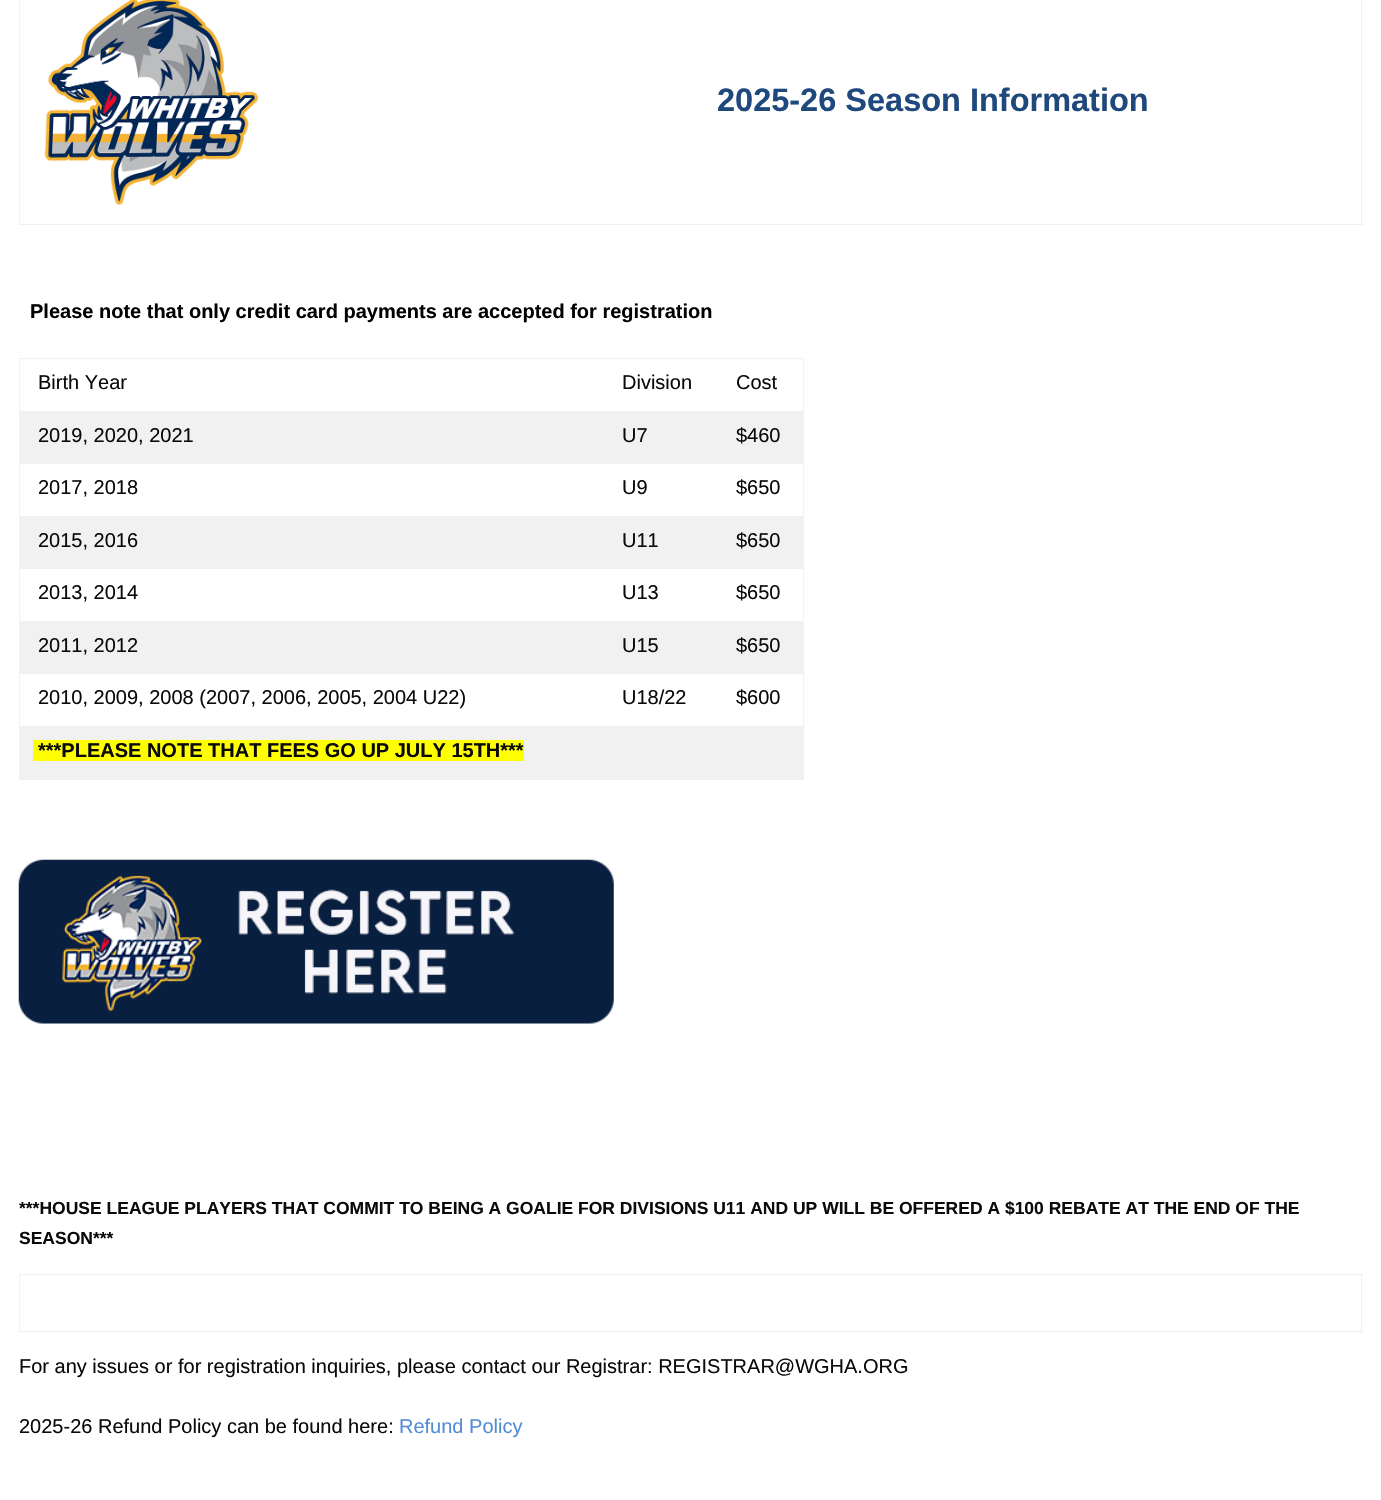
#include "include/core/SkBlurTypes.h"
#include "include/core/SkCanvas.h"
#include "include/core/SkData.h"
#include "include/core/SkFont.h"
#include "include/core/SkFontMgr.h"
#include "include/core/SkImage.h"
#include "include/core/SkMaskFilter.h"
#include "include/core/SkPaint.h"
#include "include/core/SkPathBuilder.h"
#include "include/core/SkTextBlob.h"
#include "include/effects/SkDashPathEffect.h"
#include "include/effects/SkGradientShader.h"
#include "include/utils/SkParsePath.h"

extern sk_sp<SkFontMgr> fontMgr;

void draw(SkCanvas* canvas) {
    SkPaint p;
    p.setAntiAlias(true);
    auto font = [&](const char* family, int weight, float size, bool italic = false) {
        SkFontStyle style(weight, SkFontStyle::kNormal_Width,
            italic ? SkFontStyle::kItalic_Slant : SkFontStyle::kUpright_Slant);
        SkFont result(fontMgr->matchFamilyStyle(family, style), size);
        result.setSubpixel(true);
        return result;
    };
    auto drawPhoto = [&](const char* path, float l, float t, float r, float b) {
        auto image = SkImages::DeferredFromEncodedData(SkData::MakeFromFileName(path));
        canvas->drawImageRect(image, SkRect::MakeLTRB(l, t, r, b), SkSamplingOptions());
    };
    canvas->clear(0xFFFFFFFF);
    {
        const struct { float l, t, r, b; SkColor color; } items[] = {
            {1361, 0, 1362, 225, 0xFFF1F1F1},
            {19, 224, 1363, 225, 0xFFF1F1F1},
            {19, 0, 20, 225, 0xFFF1F1F1},
        };
        for (auto [l, t, r, b, color] : items) {
            p.setColor(color);
            canvas->drawRect(SkRect::MakeLTRB(l, t, r, b), p);
        }
    }
    drawPhoto("media/1.png", 44, 0, 259, 205);
    auto font1 = font("Liberation Sans", 700, 32.5f);
    p.setColor(0xFF1F497D);
    canvas->drawString("2025-26 Season Information", 717, 111, font1, p);
    auto font2 = font("Liberation Sans", 700, 20);
    p.setColor(0xFF000000);
    canvas->drawString("Please note that only credit card payments are accepted for registration", 30, 318, font2, p);
    {
        const struct { float l, t, r, b; SkColor color; } items[] = {
            {19, 358, 804, 359, 0xFFF1F1F1},
            {803, 358, 804, 780, 0xFFF1F1F1},
            {19, 779, 804, 780, 0xFFF1F1F1},
            {19, 358, 20, 780, 0xFFF1F1F1},
        };
        for (auto [l, t, r, b, color] : items) {
            p.setColor(color);
            canvas->drawRect(SkRect::MakeLTRB(l, t, r, b), p);
        }
    }
    auto font3 = font("Liberation Sans", 400, 20);
    p.setColor(0xFF0A0A0A);
    {
        const struct { const char* s; float x, y; } items[] = {
            {"Birth Year", 38, 389},
            {"Division", 622, 389},
            {"Cost", 736, 389},
        };
        for (auto [s, x, y] : items) {
            canvas->drawString(s, x, y, font3, p);
        }
    }
    p.setColor(0xFFF1F1F1);
    canvas->drawRect(SkRect::MakeLTRB(20, 411, 803, 464), p);
    p.setColor(0xFF0A0A0A);
    {
        const struct { const char* s; float x, y; } items[] = {
            {"2019, 2020, 2021", 38, 442},
            {"U7", 622, 442},
            {"$460", 736, 442},
            {"2017, 2018", 38, 494},
            {"U9", 622, 494},
            {"$650", 736, 494},
        };
        for (auto [s, x, y] : items) {
            canvas->drawString(s, x, y, font3, p);
        }
    }
    p.setColor(0xFFF1F1F1);
    canvas->drawRect(SkRect::MakeLTRB(20, 516, 803, 569), p);
    p.setColor(0xFF0A0A0A);
    {
        const struct { const char* s; float x, y; } items[] = {
            {"2015, 2016", 38, 547},
            {"U11", 622, 547},
            {"$650", 736, 547},
            {"2013, 2014", 38, 599},
            {"U13", 622, 599},
            {"$650", 736, 599},
        };
        for (auto [s, x, y] : items) {
            canvas->drawString(s, x, y, font3, p);
        }
    }
    p.setColor(0xFFF1F1F1);
    canvas->drawRect(SkRect::MakeLTRB(20, 621, 803, 674), p);
    p.setColor(0xFF0A0A0A);
    {
        const struct { const char* s; float x, y; } items[] = {
            {"2011, 2012", 38, 652},
            {"U15", 622, 652},
            {"$650", 736, 652},
            {"2010, 2009, 2008 (2007, 2006, 2005, 2004 U22)", 38, 704},
            {"U18/22", 622, 704},
            {"$600", 736, 704},
        };
        for (auto [s, x, y] : items) {
            canvas->drawString(s, x, y, font3, p);
        }
    }
    p.setColor(0xFFF1F1F1);
    canvas->drawRect(SkRect::MakeLTRB(20, 726, 803, 779), p);
    p.setColor(0xFFFFFF00);
    canvas->drawRect(SkRect::MakeLTRB(33, 740, 524, 761), p);
    p.setColor(0xFF0A0A0A);
    canvas->drawString("***PLEASE NOTE THAT FEES GO UP JULY 15TH***", 38, 757, font2, p);
    drawPhoto("media/2.png", 18, 859, 614, 1024);
    auto font4 = font("Liberation Sans", 700, 17.5f);
    canvas->drawString("***HOUSE LEAGUE PLAYERS THAT COMMIT TO BEING A GOALIE FOR DIVISIONS U11 AND UP WILL BE OFFERED A $100 REBATE AT THE END OF THE", 19, 1214, font4, p);
    canvas->drawString("SEASON***", 19, 1244, font4, p);
    {
        const struct { float l, t, r, b; SkColor color; } items[] = {
            {19, 1274, 1363, 1275, 0xFFF1F1F1},
            {1361, 1274, 1362, 1333, 0xFFF1F1F1},
            {19, 1331, 1363, 1332, 0xFFF1F1F1},
            {19, 1274, 20, 1333, 0xFFF1F1F1},
        };
        for (auto [l, t, r, b, color] : items) {
            p.setColor(color);
            canvas->drawRect(SkRect::MakeLTRB(l, t, r, b), p);
        }
    }
    p.setColor(0xFF0A0A0A);
    canvas->drawString("For any issues or for registration inquiries, please contact our Registrar: REGISTRAR@WGHA.ORG", 19, 1373, font3, p);
    canvas->drawString("2025-26 Refund Policy can be found here:", 19, 1433, font3, p);
    p.setColor(0xFF548DD4);
    canvas->drawString("Refund Policy", 399, 1433, font3, p);
}
